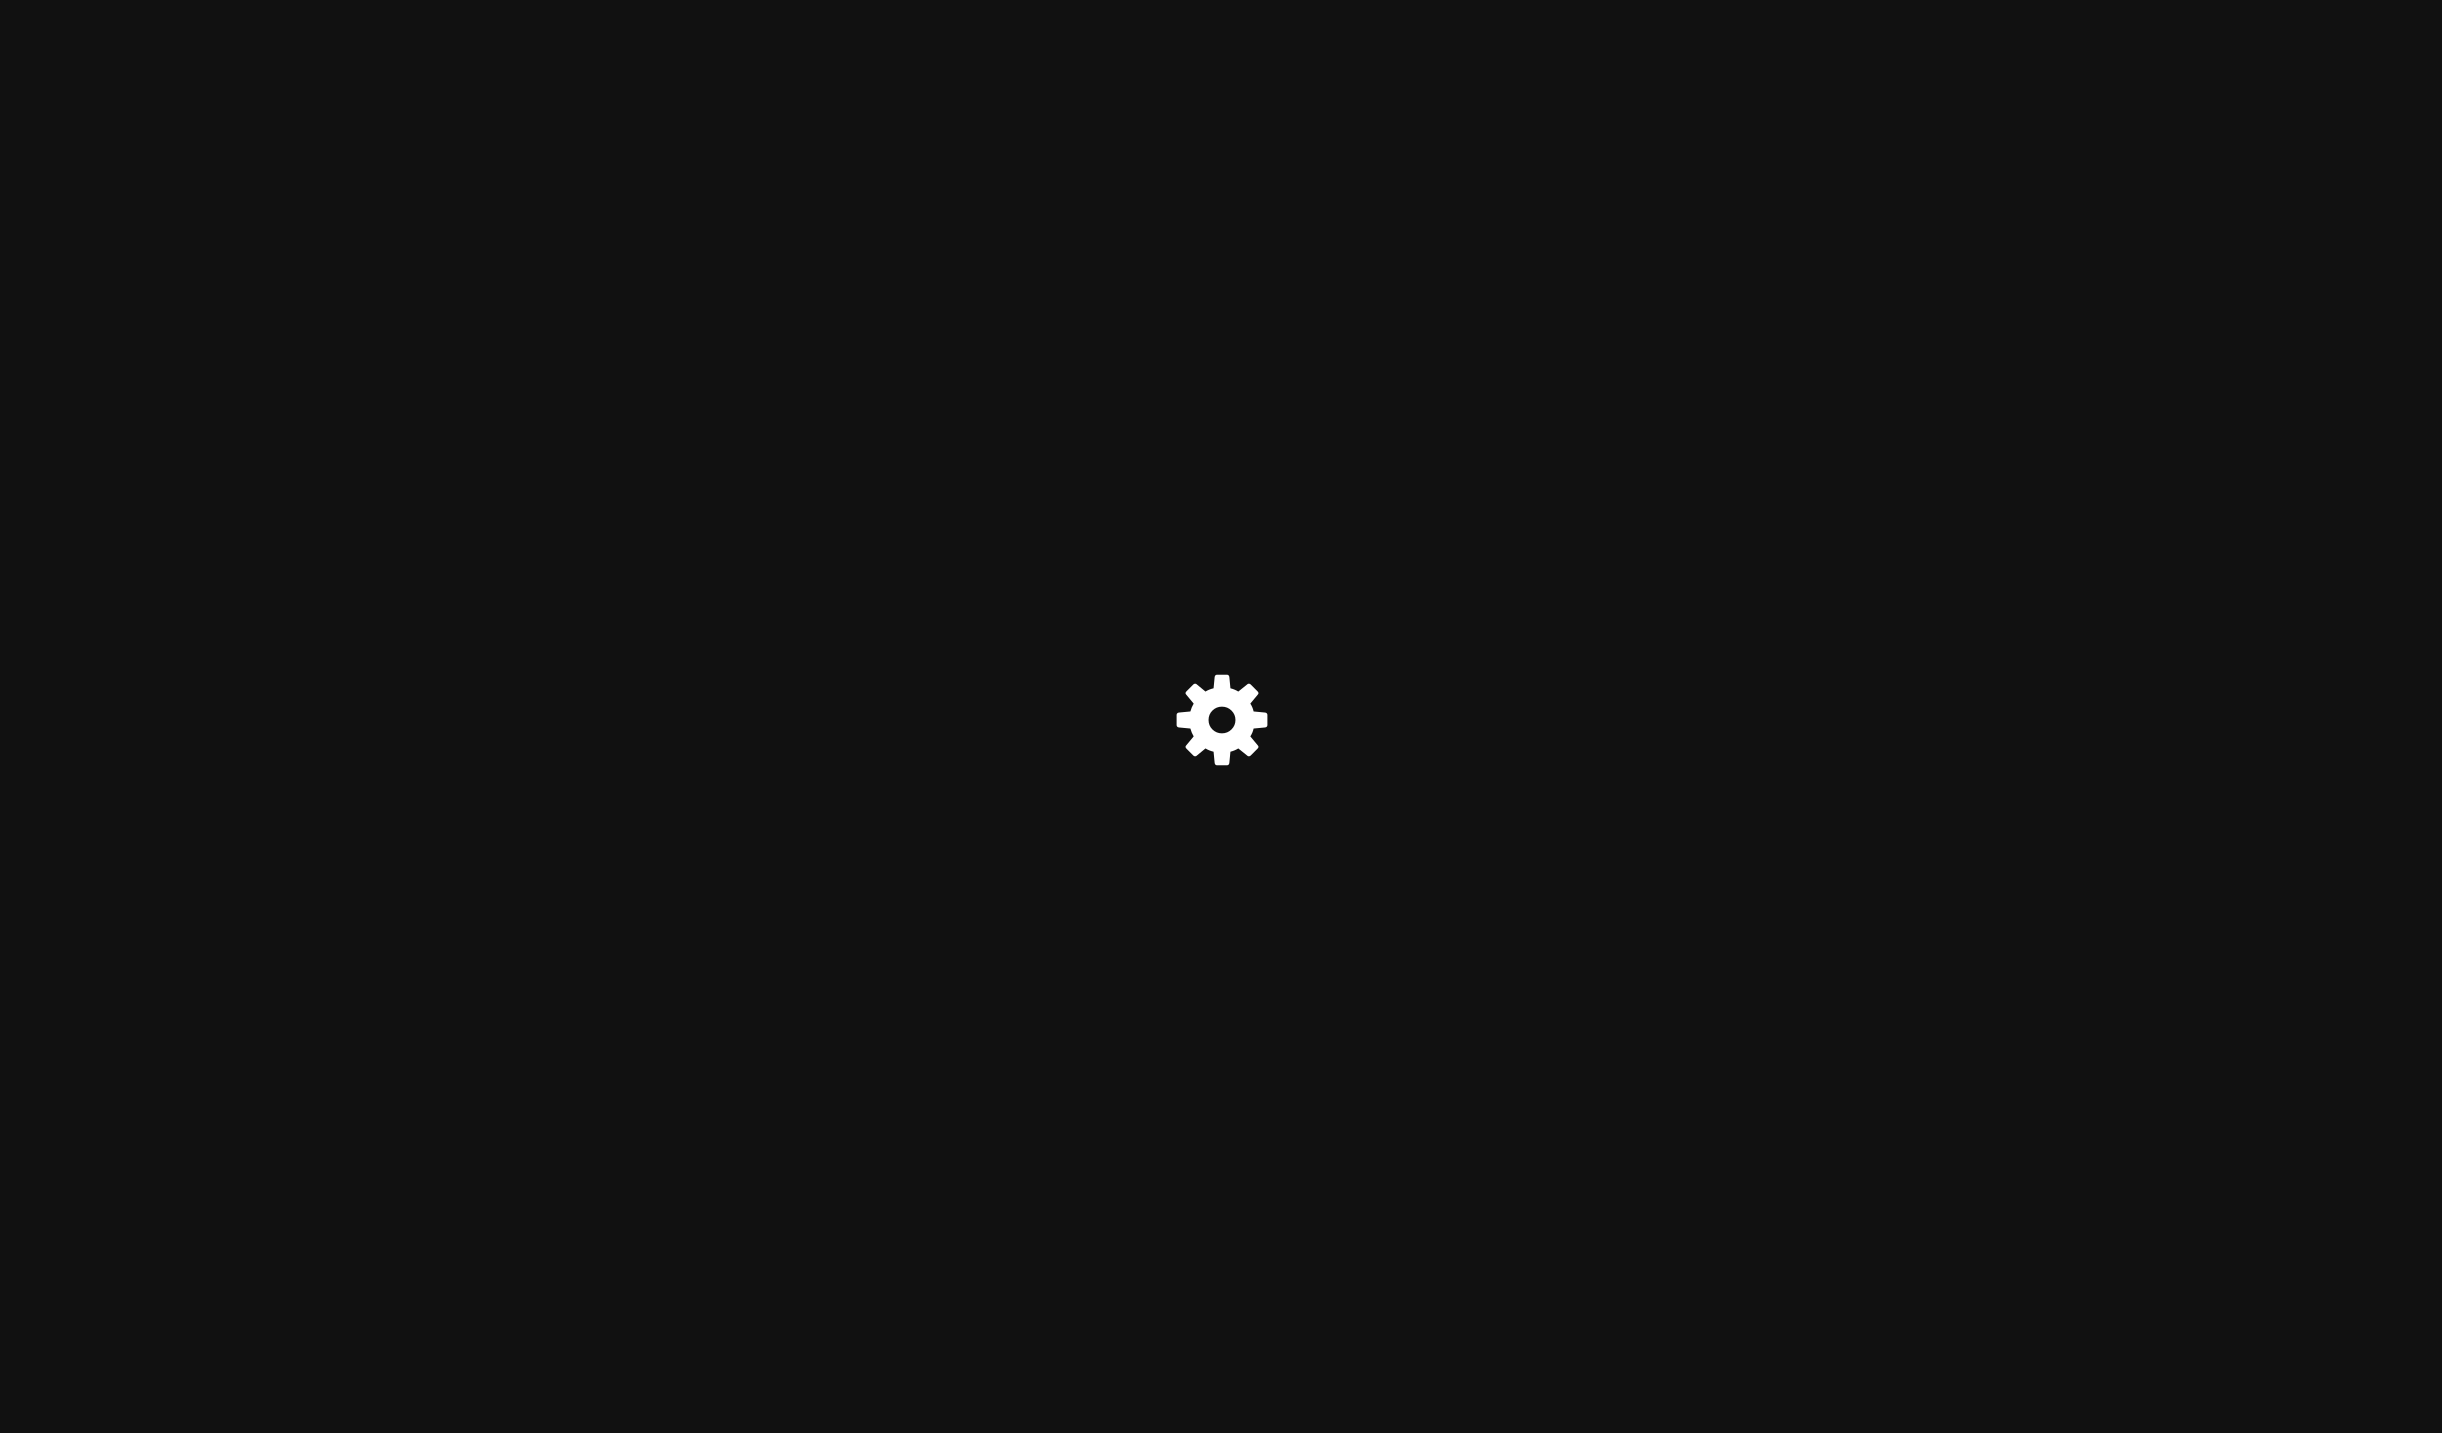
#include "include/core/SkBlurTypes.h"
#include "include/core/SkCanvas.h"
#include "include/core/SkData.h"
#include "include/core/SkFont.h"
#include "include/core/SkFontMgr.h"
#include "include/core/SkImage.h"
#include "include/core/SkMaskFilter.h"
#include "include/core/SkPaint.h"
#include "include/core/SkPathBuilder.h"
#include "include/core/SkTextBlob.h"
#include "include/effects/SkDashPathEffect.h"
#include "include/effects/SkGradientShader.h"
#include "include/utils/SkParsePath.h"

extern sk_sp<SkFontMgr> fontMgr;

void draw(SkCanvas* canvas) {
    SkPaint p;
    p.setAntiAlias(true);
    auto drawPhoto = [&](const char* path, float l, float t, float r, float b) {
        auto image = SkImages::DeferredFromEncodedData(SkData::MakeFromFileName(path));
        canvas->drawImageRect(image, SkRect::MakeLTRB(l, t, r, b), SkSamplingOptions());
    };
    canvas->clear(0xFF111111);
    drawPhoto("media/1.png", 1176, 674, 1268, 766);
}
